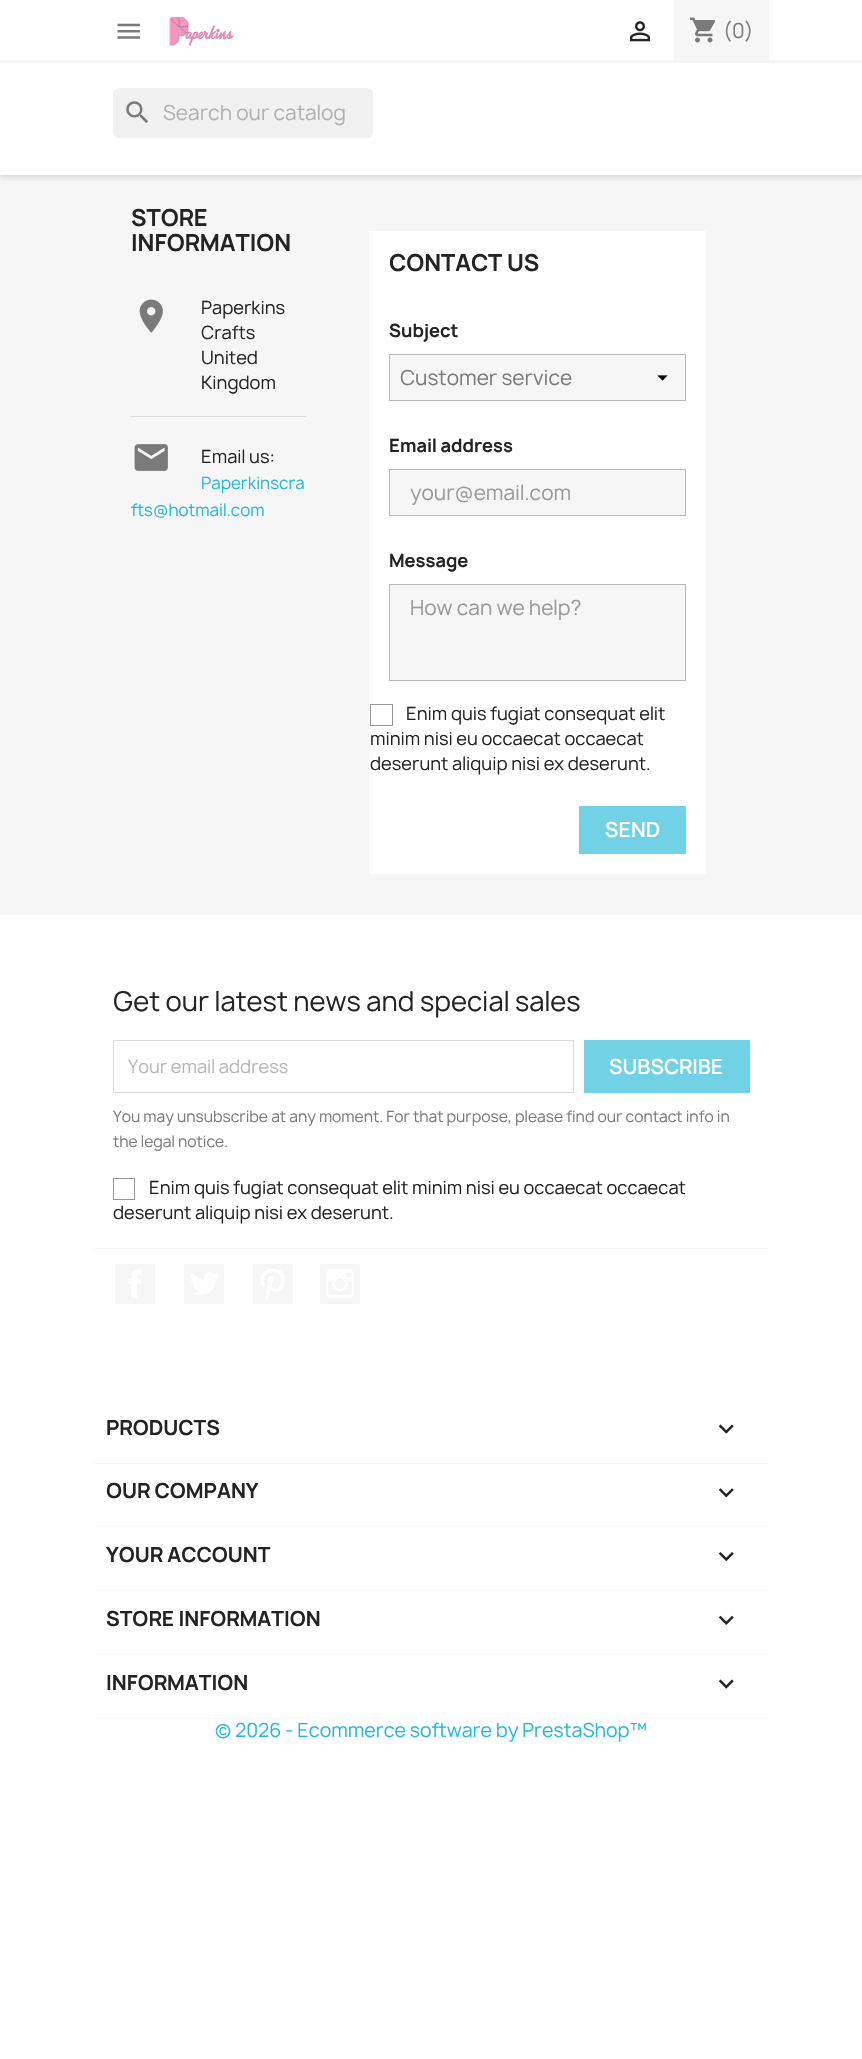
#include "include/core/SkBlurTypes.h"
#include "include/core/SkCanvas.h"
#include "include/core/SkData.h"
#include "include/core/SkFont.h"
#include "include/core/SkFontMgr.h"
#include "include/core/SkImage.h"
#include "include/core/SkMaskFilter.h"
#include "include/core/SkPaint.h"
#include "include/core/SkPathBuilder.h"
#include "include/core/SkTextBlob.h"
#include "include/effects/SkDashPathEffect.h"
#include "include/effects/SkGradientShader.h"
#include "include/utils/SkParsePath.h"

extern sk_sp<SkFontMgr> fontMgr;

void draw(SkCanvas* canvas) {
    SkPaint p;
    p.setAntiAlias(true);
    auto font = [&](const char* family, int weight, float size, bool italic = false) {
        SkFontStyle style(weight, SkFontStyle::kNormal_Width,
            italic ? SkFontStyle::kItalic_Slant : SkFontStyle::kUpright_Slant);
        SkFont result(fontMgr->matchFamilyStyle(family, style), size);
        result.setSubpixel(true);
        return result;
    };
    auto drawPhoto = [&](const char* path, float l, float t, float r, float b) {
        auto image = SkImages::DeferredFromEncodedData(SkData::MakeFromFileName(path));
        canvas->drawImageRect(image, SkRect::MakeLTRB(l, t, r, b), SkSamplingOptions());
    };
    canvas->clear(0xFFFFFFFF);
    p.setColor(0xFFF6F6F6);
    canvas->drawRect(SkRect::MakeLTRB(0, 175, 862, 915), p);
    canvas->save();
    canvas->clipRect(SkRect::MakeLTRB(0, 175, 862, 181));
    p.setColor(0x1C000000);
    p.setMaskFilter(SkMaskFilter::MakeBlur(kNormal_SkBlurStyle, 3));
    canvas->drawRect(SkRect::MakeLTRB(0, 3, 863, 178), p);
    p.setMaskFilter(nullptr);
    canvas->restore();
    p.setColor(0xFFF6F6F6);
    canvas->drawRect(SkRect::MakeLTRB(0, 60, 862, 63), p);
    drawPhoto("media/1.png", 117, 23, 140, 39);
    drawPhoto("media/2.png", 169, 16, 235, 46);
    drawPhoto("media/3.png", 630, 21, 650, 42);
    canvas->drawRect(SkRect::MakeLTRB(674, 0, 769, 60), p);
    drawPhoto("media/4.png", 690, 17, 715, 43);
    auto font1 = font("Manrope", 400, 20);
    p.setColor(0xFF7A7A7A);
    canvas->drawString("(0)", 723, 38, font1, p);
    p.setColor(0xFFF1F1F1);
    canvas->drawRoundRect(SkRect::MakeLTRB(113, 88, 373, 138), 6, 6, p);
    drawPhoto("media/5.png", 126, 101, 148, 123);
    p.setColor(0xFFB1B1B1);
    canvas->drawString("Search our catalog", 163, 120, font1, p);
    auto font2 = font("Manrope", 700, 22.5f);
    p.setColor(0xFF232323);
    canvas->drawString("STORE", 131, 226, font2, p);
    canvas->drawString("INFORMATION", 131, 251, font2, p);
    drawPhoto("media/6.png", 139, 299, 163, 333);
    auto font3 = font("Manrope", 400, 17.5f);
    {
        const struct { const char* s; float x, y; } items[] = {
            {"Paperkins", 201, 314},
            {"Crafts", 201, 339},
            {"United", 201, 364},
            {"Kingdom", 201, 389},
        };
        for (auto [s, x, y] : items) {
            canvas->drawString(s, x, y, font3, p);
        }
    }
    p.setColor(0xFFDDDDDD);
    canvas->drawRect(SkRect::MakeLTRB(131, 416, 306, 417), p);
    drawPhoto("media/7.png", 134, 444, 168, 471);
    p.setColor(0xFF232323);
    canvas->drawString("Email us:", 201, 463, font3, p);
    auto font4 = font("Manrope", 400, 16.25f);
    p.setColor(0xFF24B9D7);
    canvas->drawString("Paperkinscra", 201, 489, font4, p);
    canvas->drawString("fts@hotmail.com", 131, 516, font4, p);
    p.setColor(0xFFFFFFFF);
    canvas->drawRect(SkRect::MakeLTRB(369, 231, 706, 874), p);
    p.setColor(0xFF232323);
    canvas->drawString("CONTACT US", 389, 271, font2, p);
    auto font5 = font("Manrope", 700, 17.5f);
    canvas->drawString("Subject", 389, 337, font5, p);
    p.setColor(0xFFF6F6F6);
    canvas->drawRect(SkRect::MakeLTRB(390, 355, 685, 400), p);
    drawPhoto("media/8.png", 657, 375, 668, 381);
    p.setStyle(SkPaint::kStroke_Style);
    p.setStrokeWidth(1);
    p.setColor(0xFFB9B9B9);
    canvas->drawRect(SkRect::MakeLTRB(389.5f, 354.5f, 685.5f, 400.5f), p);
    p.setStyle(SkPaint::kFill_Style);
    p.setColor(0xFF7A7A7A);
    canvas->drawString("Customer service", 400, 385, font1, p);
    p.setColor(0xFF232323);
    canvas->drawString("Email address", 389, 452, font5, p);
    p.setColor(0xFFF6F6F6);
    canvas->drawRect(SkRect::MakeLTRB(389.5f, 469.5f, 685.5f, 515.5f), p);
    p.setStyle(SkPaint::kStroke_Style);
    p.setColor(0xFFB9B9B9);
    canvas->drawRect(SkRect::MakeLTRB(389.5f, 469.5f, 685.5f, 515.5f), p);
    p.setStyle(SkPaint::kFill_Style);
    p.setColor(0xFF999999);
    canvas->drawString("your@email.com", 410, 500, font1, p);
    p.setColor(0xFF232323);
    canvas->drawString("Message", 389, 567, font5, p);
    p.setColor(0xFFF6F6F6);
    canvas->drawRect(SkRect::MakeLTRB(389.5f, 584.5f, 685.5f, 680.5f), p);
    p.setStyle(SkPaint::kStroke_Style);
    p.setColor(0xFFB9B9B9);
    canvas->drawRect(SkRect::MakeLTRB(389.5f, 584.5f, 685.5f, 680.5f), p);
    p.setStyle(SkPaint::kFill_Style);
    p.setColor(0xFF999999);
    canvas->drawString("How can we help?", 410, 615, font1, p);
    p.setStyle(SkPaint::kStroke_Style);
    p.setColor(0xFF979797);
    canvas->drawRect(SkRect::MakeLTRB(370.5f, 704.5f, 392.5f, 725.5f), p);
    p.setStyle(SkPaint::kFill_Style);
    p.setColor(0xFF232323);
    {
        const struct { const char* s; float x, y; } items[] = {
            {"Enim quis fugiat consequat elit", 406, 720},
            {"minim nisi eu occaecat occaecat", 370, 745},
            {"deserunt aliquip nisi ex deserunt.", 370, 770},
        };
        for (auto [s, x, y] : items) {
            canvas->drawString(s, x, y, font3, p);
        }
    }
    p.setColor(0xFF71D2E5);
    canvas->drawRect(SkRect::MakeLTRB(579, 806, 686, 854), p);
    auto font6 = font("Manrope", 600, 20);
    p.setColor(0xFFFFFFFF);
    canvas->drawString("SEND", 605, 837, font6, p);
    p.setColor(0xFFF6F6F6);
    canvas->drawRect(SkRect::MakeLTRB(94, 1248, 769, 1249), p);
    auto font7 = font("Manrope", 400, 26.25f);
    p.setColor(0xFF232323);
    canvas->drawString("Get our latest news and special sales", 113, 1011, font7, p);
    p.setStyle(SkPaint::kStroke_Style);
    p.setColor(0xFFDDDDDD);
    canvas->drawRect(SkRect::MakeLTRB(113.5f, 1040.5f, 573.5f, 1092.5f), p);
    p.setStyle(SkPaint::kFill_Style);
    p.setColor(0xFFB7B7B7);
    canvas->drawString("Your email address", 128, 1073, font3, p);
    p.setColor(0xFF71D2E5);
    canvas->drawRect(SkRect::MakeLTRB(584, 1040, 750, 1093), p);
    p.setColor(0xFFFFFFFF);
    canvas->drawString("SUBSCRIBE", 609, 1074, font6, p);
    auto font8 = font("Manrope", 400, 15);
    p.setColor(0xFF7A7A7A);
    canvas->drawString("You may unsubscribe at any moment. For that purpose, please find our contact info in", 113, 1122, font8, p);
    canvas->drawString("the legal notice.", 113, 1147, font8, p);
    p.setStyle(SkPaint::kStroke_Style);
    p.setColor(0xFF979797);
    canvas->drawRect(SkRect::MakeLTRB(113.5f, 1178.5f, 134.5f, 1199.5f), p);
    p.setStyle(SkPaint::kFill_Style);
    p.setColor(0xFF232323);
    canvas->drawString("Enim quis fugiat consequat elit minim nisi eu occaecat occaecat", 149, 1194, font3, p);
    canvas->drawString("deserunt aliquip nisi ex deserunt.", 113, 1219, font3, p);
    p.setColor(0xFFF6F6F6);
    canvas->drawRect(SkRect::MakeLTRB(115, 1264, 155, 1304), p);
    drawPhoto("media/9.png", 128, 1269, 142, 1298);
    canvas->drawRect(SkRect::MakeLTRB(184, 1264, 224, 1304), p);
    drawPhoto("media/10.png", 191, 1272, 219, 1296);
    canvas->drawRect(SkRect::MakeLTRB(253, 1264, 293, 1304), p);
    drawPhoto("media/11.png", 260, 1269, 285, 1300);
    canvas->drawRect(SkRect::MakeLTRB(320, 1264, 360, 1304), p);
    drawPhoto("media/12.png", 326, 1269, 354, 1298);
    canvas->drawRect(SkRect::MakeLTRB(94, 1463, 769, 1464), p);
    auto font9 = font("Manrope", 700, 20);
    p.setColor(0xFF232323);
    canvas->drawString("PRODUCTS", 106, 1435, font9, p);
    drawPhoto("media/13.png", 718, 1424, 734, 1434);
    p.setColor(0xFFF6F6F6);
    canvas->drawRect(SkRect::MakeLTRB(94, 1526, 769, 1527), p);
    p.setColor(0xFF232323);
    canvas->drawString("OUR COMPANY", 106, 1498, font9, p);
    drawPhoto("media/14.png", 718, 1488, 734, 1498);
    p.setColor(0xFFF6F6F6);
    canvas->drawRect(SkRect::MakeLTRB(94, 1590, 769, 1591), p);
    p.setColor(0xFF232323);
    canvas->drawString("YOUR ACCOUNT", 106, 1562, font9, p);
    drawPhoto("media/15.png", 718, 1552, 734, 1562);
    p.setColor(0xFFF6F6F6);
    canvas->drawRect(SkRect::MakeLTRB(94, 1654, 769, 1655), p);
    p.setColor(0xFF232323);
    canvas->drawString("STORE INFORMATION", 106, 1626, font9, p);
    drawPhoto("media/16.png", 718, 1615, 734, 1625);
    p.setColor(0xFFF6F6F6);
    canvas->drawRect(SkRect::MakeLTRB(94, 1718, 769, 1719), p);
    p.setColor(0xFF232323);
    canvas->drawString("INFORMATION", 106, 1690, font9, p);
    drawPhoto("media/13.png", 718, 1679, 734, 1689);
    auto font10 = font("Manrope", 400, 18.75f);
    p.setColor(0xFF24B9D7);
    canvas->drawString("© 2026 - Ecommerce software by PrestaShop™", 215, 1737, font10, p);
}
